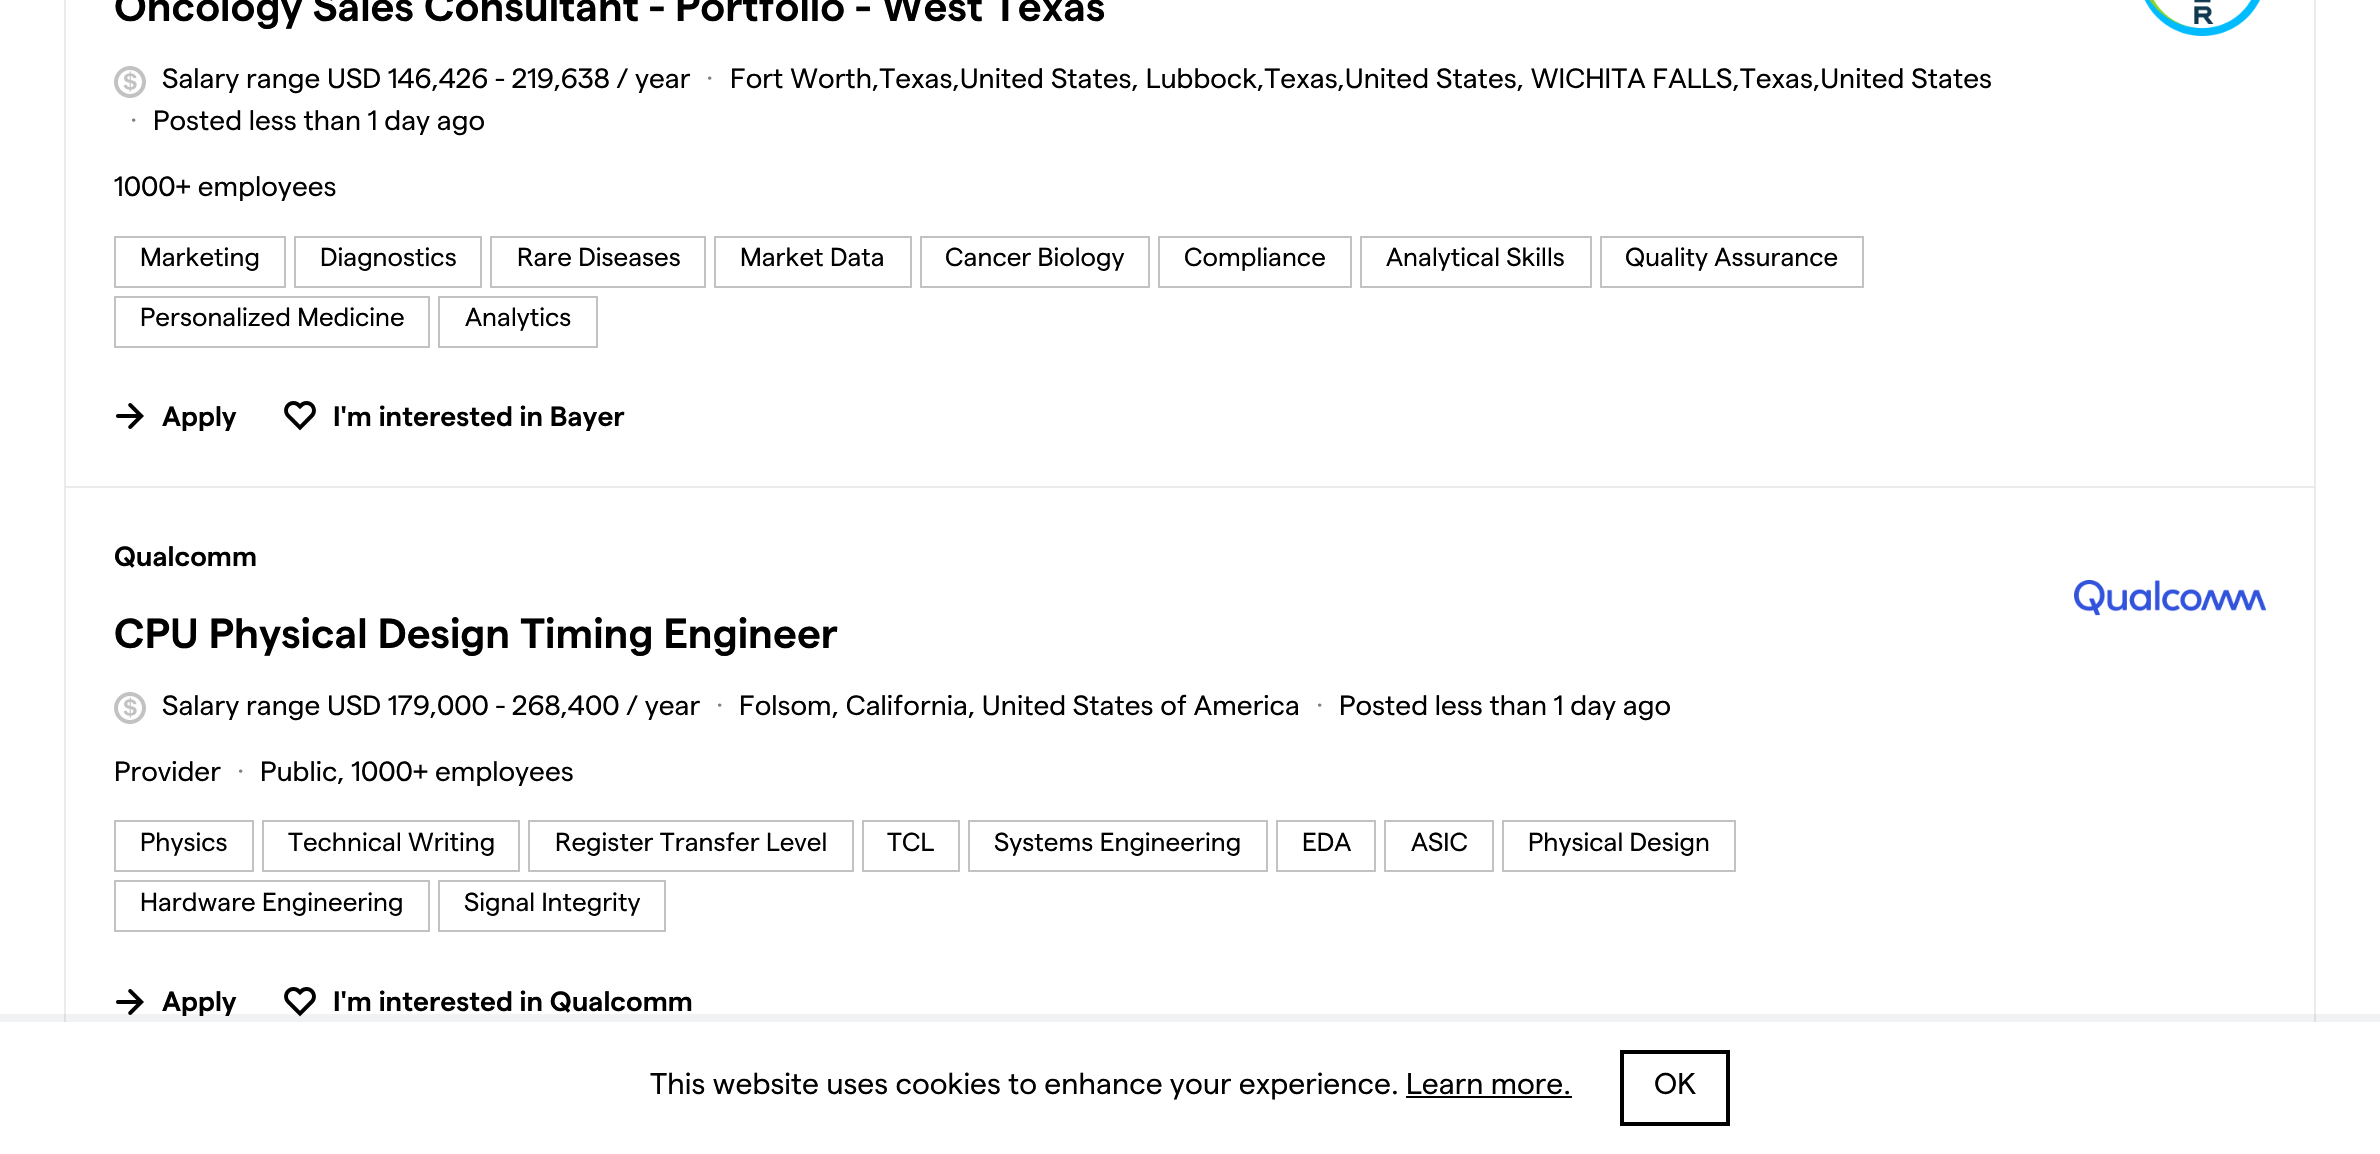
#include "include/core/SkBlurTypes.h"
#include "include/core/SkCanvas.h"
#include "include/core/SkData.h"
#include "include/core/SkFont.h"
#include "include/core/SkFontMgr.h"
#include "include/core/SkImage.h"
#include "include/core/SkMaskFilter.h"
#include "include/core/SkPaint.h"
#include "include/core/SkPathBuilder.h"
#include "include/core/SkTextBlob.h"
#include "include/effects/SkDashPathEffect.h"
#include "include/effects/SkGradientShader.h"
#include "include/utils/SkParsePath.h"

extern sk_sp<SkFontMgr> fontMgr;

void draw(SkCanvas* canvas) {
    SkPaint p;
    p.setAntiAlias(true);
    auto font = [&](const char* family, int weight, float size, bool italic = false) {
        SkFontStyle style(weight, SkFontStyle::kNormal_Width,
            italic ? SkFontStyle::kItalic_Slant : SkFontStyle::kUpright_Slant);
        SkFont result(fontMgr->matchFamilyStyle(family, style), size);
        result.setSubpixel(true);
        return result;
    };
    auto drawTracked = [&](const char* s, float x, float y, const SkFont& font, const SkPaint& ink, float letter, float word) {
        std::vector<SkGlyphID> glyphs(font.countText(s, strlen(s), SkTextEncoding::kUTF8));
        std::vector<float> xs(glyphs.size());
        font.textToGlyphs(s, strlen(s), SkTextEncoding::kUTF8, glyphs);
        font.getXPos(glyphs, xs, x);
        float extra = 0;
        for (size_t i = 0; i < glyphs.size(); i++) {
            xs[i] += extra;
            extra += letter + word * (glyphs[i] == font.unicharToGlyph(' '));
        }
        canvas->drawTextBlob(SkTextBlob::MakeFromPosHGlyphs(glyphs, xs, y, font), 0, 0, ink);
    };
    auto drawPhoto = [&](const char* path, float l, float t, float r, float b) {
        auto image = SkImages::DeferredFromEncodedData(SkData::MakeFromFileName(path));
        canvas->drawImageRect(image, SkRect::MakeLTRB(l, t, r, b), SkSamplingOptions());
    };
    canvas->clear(0xFFFFFFFF);
    p.setStyle(SkPaint::kStroke_Style);
    p.setStrokeWidth(2);
    p.setColor(0xFFEBEBEB);
    canvas->drawRect(SkRect::MakeLTRB(65, -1, 2315, 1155), p);
    p.setStyle(SkPaint::kFill_Style);
    canvas->drawRect(SkRect::MakeLTRB(66, 486, 2314, 488), p);
    auto font1 = font("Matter", 600, 42);
    p.setColor(0xFF000000);
    canvas->drawString("Oncology Sales Consultant - Portfolio - West Texas", 114, 21, font1, p);
    drawPhoto("media/1.png", 114, 66, 146, 98);
    auto font2 = font("Matter", 400, 28);
    canvas->drawString("Salary range USD 146,426 - 219,638 / year", 162, 88, font2, p);
    p.setColor(0xFF7F8081);
    canvas->drawString("·", 706, 88, font2, p);
    p.setColor(0xFF000000);
    drawTracked("Fort Worth,Texas,United States, Lubbock,Texas,United States, WICHITA FALLS,Texas,United States", 730, 88, font2, p, 0, 0.25f);
    p.setColor(0xFF7F8081);
    canvas->drawString("·", 130, 130, font2, p);
    p.setColor(0xFF000000);
    canvas->drawString("Posted less than 1 day ago", 153, 130, font2, p);
    canvas->drawString("1000+ employees", 114, 196, font2, p);
    p.setStyle(SkPaint::kStroke_Style);
    p.setColor(0xFFC2C2C2);
    canvas->drawRect(SkRect::MakeLTRB(115, 237, 285, 287), p);
    auto font3 = font("Matter", 400, 26);
    p.setStyle(SkPaint::kFill_Style);
    p.setColor(0xFF000000);
    canvas->drawString("Marketing", 140, 266, font3, p);
    p.setStyle(SkPaint::kStroke_Style);
    p.setColor(0xFFC2C2C2);
    canvas->drawRect(SkRect::MakeLTRB(295, 237, 481, 287), p);
    p.setStyle(SkPaint::kFill_Style);
    p.setColor(0xFF000000);
    canvas->drawString("Diagnostics", 320, 266, font3, p);
    p.setStyle(SkPaint::kStroke_Style);
    p.setColor(0xFFC2C2C2);
    canvas->drawRect(SkRect::MakeLTRB(491, 237, 705, 287), p);
    p.setStyle(SkPaint::kFill_Style);
    p.setColor(0xFF000000);
    canvas->drawString("Rare Diseases", 517, 266, font3, p);
    p.setStyle(SkPaint::kStroke_Style);
    p.setColor(0xFFC2C2C2);
    canvas->drawRect(SkRect::MakeLTRB(715, 237, 911, 287), p);
    p.setStyle(SkPaint::kFill_Style);
    p.setColor(0xFF000000);
    canvas->drawString("Market Data", 740, 266, font3, p);
    p.setStyle(SkPaint::kStroke_Style);
    p.setColor(0xFFC2C2C2);
    canvas->drawRect(SkRect::MakeLTRB(921, 237, 1149, 287), p);
    p.setStyle(SkPaint::kFill_Style);
    p.setColor(0xFF000000);
    canvas->drawString("Cancer Biology", 945, 266, font3, p);
    p.setStyle(SkPaint::kStroke_Style);
    p.setColor(0xFFC2C2C2);
    canvas->drawRect(SkRect::MakeLTRB(1159, 237, 1351, 287), p);
    p.setStyle(SkPaint::kFill_Style);
    p.setColor(0xFF000000);
    canvas->drawString("Compliance", 1184, 266, font3, p);
    p.setStyle(SkPaint::kStroke_Style);
    p.setColor(0xFFC2C2C2);
    canvas->drawRect(SkRect::MakeLTRB(1361, 237, 1591, 287), p);
    p.setStyle(SkPaint::kFill_Style);
    p.setColor(0xFF000000);
    canvas->drawString("Analytical Skills", 1386, 266, font3, p);
    p.setStyle(SkPaint::kStroke_Style);
    p.setColor(0xFFC2C2C2);
    canvas->drawRect(SkRect::MakeLTRB(1601, 237, 1863, 287), p);
    p.setStyle(SkPaint::kFill_Style);
    p.setColor(0xFF000000);
    canvas->drawString("Quality Assurance", 1625, 266, font3, p);
    p.setStyle(SkPaint::kStroke_Style);
    p.setColor(0xFFC2C2C2);
    canvas->drawRect(SkRect::MakeLTRB(115, 297, 429, 347), p);
    p.setStyle(SkPaint::kFill_Style);
    p.setColor(0xFF000000);
    canvas->drawString("Personalized Medicine", 140, 326, font3, p);
    p.setStyle(SkPaint::kStroke_Style);
    p.setColor(0xFFC2C2C2);
    canvas->drawRect(SkRect::MakeLTRB(439, 297, 597, 347), p);
    p.setStyle(SkPaint::kFill_Style);
    p.setColor(0xFF000000);
    canvas->drawString("Analytics", 465, 326, font3, p);
    drawPhoto("media/2.png", 116, 403, 144, 429);
    auto font4 = font("Matter", 600, 28);
    canvas->drawString("Apply", 162, 426, font4, p);
    drawPhoto("media/3.png", 284, 401, 316, 431);
    canvas->drawString("I'm interested in Bayer", 333, 426, font4, p);
    drawPhoto("media/4.png", 2144, 0, 2261, 36);
    canvas->drawString("Qualcomm", 114, 566, font4, p);
    canvas->drawString("CPU Physical Design Timing Engineer", 114, 648, font1, p);
    drawPhoto("media/1.png", 114, 692, 146, 724);
    canvas->drawString("Salary range USD 179,000 - 268,400 / year", 162, 715, font2, p);
    p.setColor(0xFF7F8081);
    canvas->drawString("·", 716, 715, font2, p);
    p.setColor(0xFF000000);
    canvas->drawString("Folsom, California, United States of America", 739, 715, font2, p);
    p.setColor(0xFF7F8081);
    canvas->drawString("·", 1316, 715, font2, p);
    p.setColor(0xFF000000);
    canvas->drawString("Posted less than 1 day ago", 1339, 715, font2, p);
    canvas->drawString("Provider", 114, 781, font2, p);
    p.setColor(0xFF7F8081);
    canvas->drawString("·", 237, 781, font2, p);
    p.setColor(0xFF000000);
    canvas->drawString("Public, 1000+ employees", 260, 781, font2, p);
    p.setStyle(SkPaint::kStroke_Style);
    p.setColor(0xFFC2C2C2);
    canvas->drawRect(SkRect::MakeLTRB(115, 821, 253, 871), p);
    p.setStyle(SkPaint::kFill_Style);
    p.setColor(0xFF000000);
    canvas->drawString("Physics", 140, 851, font3, p);
    p.setStyle(SkPaint::kStroke_Style);
    p.setColor(0xFFC2C2C2);
    canvas->drawRect(SkRect::MakeLTRB(263, 821, 519, 871), p);
    p.setStyle(SkPaint::kFill_Style);
    p.setColor(0xFF000000);
    canvas->drawString("Technical Writing", 288, 851, font3, p);
    p.setStyle(SkPaint::kStroke_Style);
    p.setColor(0xFFC2C2C2);
    canvas->drawRect(SkRect::MakeLTRB(529, 821, 853, 871), p);
    p.setStyle(SkPaint::kFill_Style);
    p.setColor(0xFF000000);
    canvas->drawString("Register Transfer Level", 555, 851, font3, p);
    p.setStyle(SkPaint::kStroke_Style);
    p.setColor(0xFFC2C2C2);
    canvas->drawRect(SkRect::MakeLTRB(863, 821, 959, 871), p);
    p.setStyle(SkPaint::kFill_Style);
    p.setColor(0xFF000000);
    canvas->drawString("TCL", 887, 851, font3, p);
    p.setStyle(SkPaint::kStroke_Style);
    p.setColor(0xFFC2C2C2);
    canvas->drawRect(SkRect::MakeLTRB(969, 821, 1267, 871), p);
    p.setStyle(SkPaint::kFill_Style);
    p.setColor(0xFF000000);
    canvas->drawString("Systems Engineering", 994, 851, font3, p);
    p.setStyle(SkPaint::kStroke_Style);
    p.setColor(0xFFC2C2C2);
    canvas->drawRect(SkRect::MakeLTRB(1277, 821, 1375, 871), p);
    p.setStyle(SkPaint::kFill_Style);
    p.setColor(0xFF000000);
    canvas->drawString("EDA", 1302, 851, font3, p);
    p.setStyle(SkPaint::kStroke_Style);
    p.setColor(0xFFC2C2C2);
    canvas->drawRect(SkRect::MakeLTRB(1385, 821, 1493, 871), p);
    p.setStyle(SkPaint::kFill_Style);
    p.setColor(0xFF000000);
    canvas->drawString("ASIC", 1411, 851, font3, p);
    p.setStyle(SkPaint::kStroke_Style);
    p.setColor(0xFFC2C2C2);
    canvas->drawRect(SkRect::MakeLTRB(1503, 821, 1735, 871), p);
    p.setStyle(SkPaint::kFill_Style);
    p.setColor(0xFF000000);
    canvas->drawString("Physical Design", 1528, 851, font3, p);
    p.setStyle(SkPaint::kStroke_Style);
    p.setColor(0xFFC2C2C2);
    canvas->drawRect(SkRect::MakeLTRB(115, 881, 429, 931), p);
    p.setStyle(SkPaint::kFill_Style);
    p.setColor(0xFF000000);
    canvas->drawString("Hardware Engineering", 140, 911, font3, p);
    p.setStyle(SkPaint::kStroke_Style);
    p.setColor(0xFFC2C2C2);
    canvas->drawRect(SkRect::MakeLTRB(439, 881, 665, 931), p);
    p.setStyle(SkPaint::kFill_Style);
    p.setColor(0xFF000000);
    canvas->drawString("Signal Integrity", 464, 911, font3, p);
    drawPhoto("media/2.png", 116, 989, 144, 1015);
    canvas->drawString("Apply", 162, 1011, font4, p);
    drawPhoto("media/3.png", 284, 987, 316, 1017);
    canvas->drawString("I'm interested in Qualcomm", 333, 1011, font4, p);
    drawPhoto("media/5.png", 2074, 580, 2266, 616);
    p.setColor(0x0F0D2531);
    canvas->drawRect(SkRect::MakeLTRB(0, 1014, 2380, 1022), p);
    p.setColor(0xFFFFFFFF);
    canvas->drawRect(SkRect::MakeLTRB(64, 1022, 2316, 1154), p);
    auto font5 = font("Matter", 400, 30);
    p.setColor(0xFF000000);
    canvas->drawString("This website uses cookies to enhance your experience. Learn more.", 650, 1094, font5, p);
    p.setStyle(SkPaint::kStroke_Style);
    p.setStrokeWidth(4);
    canvas->drawRect(SkRect::MakeLTRB(1622, 1052, 1728, 1124), p);
    p.setStyle(SkPaint::kFill_Style);
    canvas->drawString("OK", 1654, 1094, font5, p);
    canvas->drawRect(SkRect::MakeLTRB(1406, 1096, 1572, 1098), p);
}
